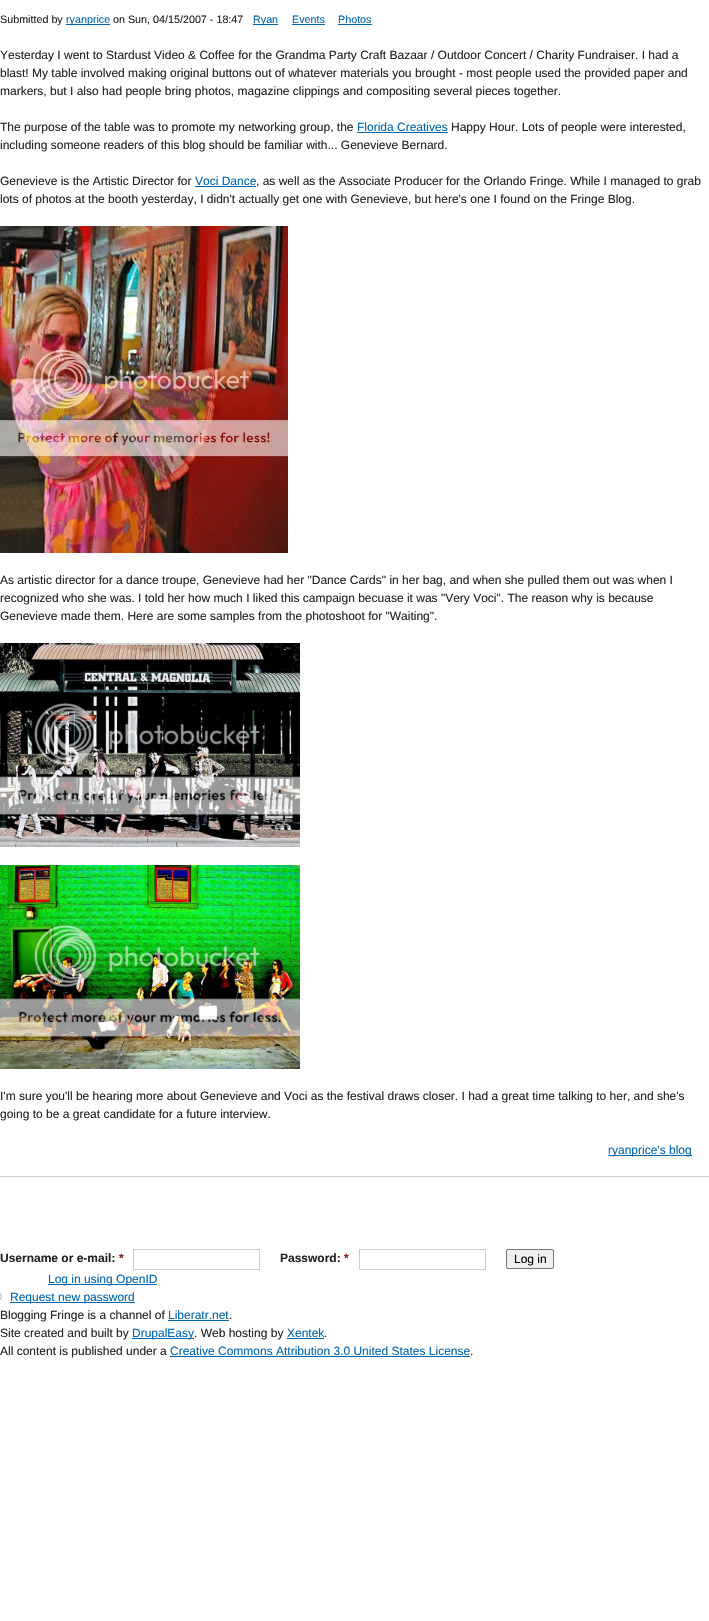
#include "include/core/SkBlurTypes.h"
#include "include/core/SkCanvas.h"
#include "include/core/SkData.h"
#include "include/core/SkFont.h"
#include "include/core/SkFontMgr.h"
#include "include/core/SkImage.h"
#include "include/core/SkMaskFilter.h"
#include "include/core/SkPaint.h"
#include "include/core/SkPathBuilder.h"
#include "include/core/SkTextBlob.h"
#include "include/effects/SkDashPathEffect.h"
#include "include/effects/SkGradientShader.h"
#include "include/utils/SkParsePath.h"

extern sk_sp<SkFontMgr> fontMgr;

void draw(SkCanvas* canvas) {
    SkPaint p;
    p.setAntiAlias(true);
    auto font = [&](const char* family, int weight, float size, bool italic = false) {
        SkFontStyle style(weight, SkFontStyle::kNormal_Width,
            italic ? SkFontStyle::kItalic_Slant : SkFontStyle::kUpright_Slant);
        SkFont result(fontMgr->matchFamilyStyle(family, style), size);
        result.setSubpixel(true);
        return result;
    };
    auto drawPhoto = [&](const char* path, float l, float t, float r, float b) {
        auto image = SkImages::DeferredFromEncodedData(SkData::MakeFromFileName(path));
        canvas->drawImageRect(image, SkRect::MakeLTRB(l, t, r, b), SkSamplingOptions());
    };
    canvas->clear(0xFFFFFFFF);
    p.setColor(0xFFCCCCCC);
    canvas->drawRect(SkRect::MakeLTRB(0, 1176, 709, 1177), p);
    auto font1 = font("Liberation Sans", 400, 10.75f);
    p.setColor(0xFF222222);
    canvas->drawString("Submitted by", 0, 23, font1, p);
    p.setColor(0xFF0066B3);
    canvas->drawRect(SkRect::MakeLTRB(66, 24, 110, 25), p);
    canvas->drawString("ryanprice", 66, 23, font1, p);
    p.setColor(0xFF222222);
    canvas->drawString("on Sun, 04/15/2007 - 18:47", 113, 23, font1, p);
    p.setColor(0xFF0066B3);
    canvas->drawRect(SkRect::MakeLTRB(253, 24, 278, 25), p);
    canvas->drawString("Ryan", 253, 23, font1, p);
    canvas->drawString("Events", 292, 23, font1, p);
    canvas->drawRect(SkRect::MakeLTRB(292, 24, 325, 25), p);
    canvas->drawString("Photos", 338, 23, font1, p);
    canvas->drawRect(SkRect::MakeLTRB(338, 24, 372, 25), p);
    auto font2 = font("Liberation Sans", 400, 12);
    p.setColor(0xFF222222);
    {
        const struct { const char* s; float x, y; } items[] = {
            {"Yesterday I went to Stardust Video & Coffee for the Grandma Party Craft Bazaar / Outdoor Concert / Charity Fundraiser. I had a", 0, 59},
            {"blast! My table involved making original buttons out of whatever materials you brought - most people used the provided paper and", 0, 77},
            {"markers, but I also had people bring photos, magazine clippings and compositing several pieces together.", 0, 95},
            {"The purpose of the table was to promote my networking group, the", 0, 131},
        };
        for (auto [s, x, y] : items) {
            canvas->drawString(s, x, y, font2, p);
        }
    }
    p.setColor(0xFF0066B3);
    canvas->drawString("Florida Creatives", 357, 131, font2, p);
    canvas->drawRect(SkRect::MakeLTRB(357, 132, 448, 133), p);
    p.setColor(0xFF222222);
    {
        const struct { const char* s; float x, y; } items[] = {
            {"Happy Hour. Lots of people were interested,", 451, 131},
            {"including someone readers of this blog should be familiar with... Genevieve Bernard.", 0, 149},
            {"Genevieve is the Artistic Director for", 0, 185},
        };
        for (auto [s, x, y] : items) {
            canvas->drawString(s, x, y, font2, p);
        }
    }
    p.setColor(0xFF0066B3);
    canvas->drawString("Voci Dance", 195, 185, font2, p);
    canvas->drawRect(SkRect::MakeLTRB(195, 186, 256, 187), p);
    p.setColor(0xFF222222);
    canvas->drawString(", as well as the Associate Producer for the Orlando Fringe. While I managed to grab", 256, 185, font2, p);
    canvas->drawString("lots of photos at the booth yesterday, I didn't actually get one with Genevieve, but here's one I found on the Fringe Blog.", 0, 203, font2, p);
    drawPhoto("media/1.png", 0, 226, 288, 553);
    {
        const struct { const char* s; float x, y; } items[] = {
            {"As artistic director for a dance troupe, Genevieve had her \"Dance Cards\" in her bag, and when she pulled them out was when I", 0, 584},
            {"recognized who she was. I told her how much I liked this campaign becuase it was \"Very Voci\". The reason why is because", 0, 602},
            {"Genevieve made them. Here are some samples from the photoshoot for \"Waiting\".", 0, 620},
        };
        for (auto [s, x, y] : items) {
            canvas->drawString(s, x, y, font2, p);
        }
    }
    drawPhoto("media/2.png", 0, 643, 300, 847);
    drawPhoto("media/3.png", 0, 865, 300, 1069);
    canvas->drawString("I'm sure you'll be hearing more about Genevieve and Voci as the festival draws closer. I had a great time talking to her, and she's", 0, 1100, font2, p);
    canvas->drawString("going to be a great candidate for a future interview.", 0, 1118, font2, p);
    p.setColor(0xFF0066B3);
    canvas->drawRect(SkRect::MakeLTRB(608, 1155, 692, 1156), p);
    canvas->drawString("ryanprice's blog", 608, 1154, font2, p);
    auto font3 = font("Liberation Sans", 700, 12);
    p.setColor(0xFF222222);
    canvas->drawString("Username or e-mail:", 0, 1262, font3, p);
    p.setColor(0xFF8A1F11);
    canvas->drawString("*", 119, 1262, font3, p);
    p.setStyle(SkPaint::kStroke_Style);
    p.setStrokeWidth(1);
    p.setColor(0xFFCCCCCC);
    canvas->drawRect(SkRect::MakeLTRB(133.5f, 1249.5f, 259.5f, 1269.5f), p);
    p.setStyle(SkPaint::kFill_Style);
    p.setColor(0xFF222222);
    canvas->drawString("Password:", 280, 1262, font3, p);
    p.setColor(0xFF8A1F11);
    canvas->drawString("*", 344, 1262, font3, p);
    p.setStyle(SkPaint::kStroke_Style);
    p.setColor(0xFFCCCCCC);
    canvas->drawRect(SkRect::MakeLTRB(359.5f, 1249.5f, 485.5f, 1269.5f), p);
    p.setStyle(SkPaint::kFill_Style);
    p.setColor(0xFFEFEFEF);
    canvas->drawRoundRect(SkRect::MakeLTRB(506.5f, 1249.5f, 553.5f, 1268.5f), 1.5f, 1.5f, p);
    p.setStyle(SkPaint::kStroke_Style);
    p.setColor(0xFF767676);
    canvas->drawRoundRect(SkRect::MakeLTRB(506.5f, 1249.5f, 553.5f, 1268.5f), 1.5f, 1.5f, p);
    p.setStyle(SkPaint::kFill_Style);
    p.setColor(0xFF000000);
    canvas->drawString("Log in", 514, 1263, font2, p);
    p.setColor(0xFF0066B3);
    canvas->drawRect(SkRect::MakeLTRB(48, 1284, 157, 1285), p);
    canvas->drawString("Log in using OpenID", 48, 1283, font2, p);
    drawPhoto("media/4.png", 0, 1293, 2, 1300);
    canvas->drawRect(SkRect::MakeLTRB(10, 1302, 135, 1303), p);
    canvas->drawString("Request new password", 10, 1301, font2, p);
    p.setColor(0xFF222222);
    canvas->drawString("Blogging Fringe is a channel of", 0, 1319, font2, p);
    p.setColor(0xFF0066B3);
    canvas->drawString("Liberatr.net", 168, 1319, font2, p);
    canvas->drawRect(SkRect::MakeLTRB(168, 1320, 229, 1321), p);
    p.setColor(0xFF222222);
    canvas->drawString(".", 229, 1319, font2, p);
    canvas->drawString("Site created and built by", 0, 1337, font2, p);
    p.setColor(0xFF0066B3);
    canvas->drawRect(SkRect::MakeLTRB(132, 1338, 194, 1339), p);
    canvas->drawString("DrupalEasy", 132, 1337, font2, p);
    p.setColor(0xFF222222);
    canvas->drawString(". Web hosting by", 194, 1337, font2, p);
    p.setColor(0xFF0066B3);
    canvas->drawString("Xentek", 287, 1337, font2, p);
    canvas->drawRect(SkRect::MakeLTRB(287, 1338, 324, 1339), p);
    p.setColor(0xFF222222);
    canvas->drawString(".", 324, 1337, font2, p);
    canvas->drawString("All content is published under a", 0, 1355, font2, p);
    p.setColor(0xFF0066B3);
    canvas->drawString("Creative Commons Attribution 3.0 United States License", 170, 1355, font2, p);
    canvas->drawRect(SkRect::MakeLTRB(170, 1356, 470, 1357), p);
    p.setColor(0xFF222222);
    canvas->drawString(".", 470, 1355, font2, p);
}
